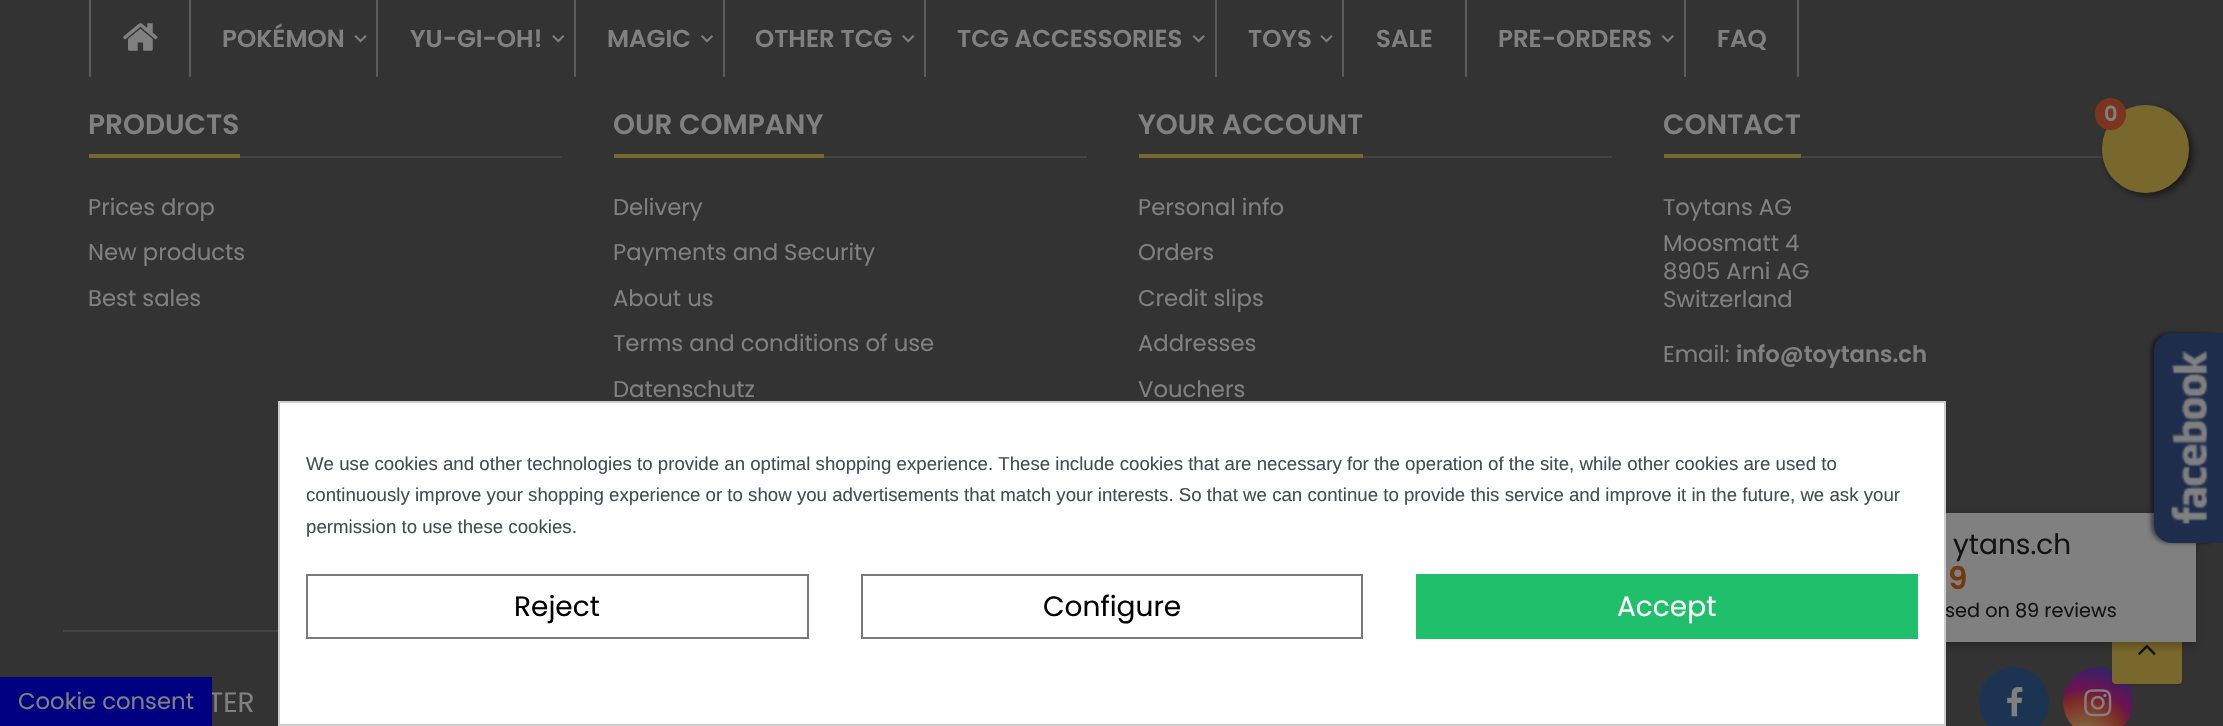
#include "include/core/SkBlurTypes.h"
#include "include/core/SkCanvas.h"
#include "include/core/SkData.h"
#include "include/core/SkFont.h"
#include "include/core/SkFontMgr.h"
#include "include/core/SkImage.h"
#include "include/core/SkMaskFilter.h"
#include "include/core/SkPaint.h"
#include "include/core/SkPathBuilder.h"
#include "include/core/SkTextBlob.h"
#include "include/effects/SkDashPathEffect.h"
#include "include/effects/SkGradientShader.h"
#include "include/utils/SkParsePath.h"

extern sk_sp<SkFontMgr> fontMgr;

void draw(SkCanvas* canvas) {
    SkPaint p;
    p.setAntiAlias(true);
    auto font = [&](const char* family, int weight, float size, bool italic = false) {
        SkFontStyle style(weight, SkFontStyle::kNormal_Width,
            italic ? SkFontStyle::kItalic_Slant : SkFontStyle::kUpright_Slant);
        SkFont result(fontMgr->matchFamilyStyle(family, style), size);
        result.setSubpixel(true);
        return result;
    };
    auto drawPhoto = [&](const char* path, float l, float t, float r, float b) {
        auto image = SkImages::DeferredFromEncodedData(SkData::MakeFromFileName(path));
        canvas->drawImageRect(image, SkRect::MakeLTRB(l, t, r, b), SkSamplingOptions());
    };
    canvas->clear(0xFF333333);
    p.setColor(0xFF5B5B5B);
    canvas->drawRect(SkRect::MakeLTRB(89, 0, 91, 77), p);
    drawPhoto("media/1.png", 123, 23, 158, 51);
    canvas->drawRect(SkRect::MakeLTRB(189, 0, 191, 77), p);
    auto font1 = font("Poppins", 600, 24.5f);
    p.setColor(0xFF808080);
    canvas->drawString("POKÉMON", 222, 47, font1, p);
    drawPhoto("media/2.png", 354, 35, 367, 43);
    p.setColor(0xFF5B5B5B);
    canvas->drawRect(SkRect::MakeLTRB(376, 0, 378, 77), p);
    p.setColor(0xFF808080);
    canvas->drawString("YU-GI-OH!", 410, 47, font1, p);
    drawPhoto("media/3.png", 552, 35, 565, 43);
    p.setColor(0xFF5B5B5B);
    canvas->drawRect(SkRect::MakeLTRB(574, 0, 576, 77), p);
    p.setColor(0xFF808080);
    canvas->drawString("MAGIC", 607, 47, font1, p);
    drawPhoto("media/4.png", 701, 35, 713, 43);
    p.setColor(0xFF5B5B5B);
    canvas->drawRect(SkRect::MakeLTRB(723, 0, 725, 77), p);
    p.setColor(0xFF808080);
    canvas->drawString("OTHER TCG", 755, 47, font1, p);
    drawPhoto("media/3.png", 902, 35, 915, 43);
    p.setColor(0xFF5B5B5B);
    canvas->drawRect(SkRect::MakeLTRB(924, 0, 926, 77), p);
    p.setColor(0xFF808080);
    canvas->drawString("TCG ACCESSORIES", 957, 47, font1, p);
    drawPhoto("media/5.png", 1192, 35, 1205, 43);
    p.setColor(0xFF5B5B5B);
    canvas->drawRect(SkRect::MakeLTRB(1215, 0, 1217, 77), p);
    p.setColor(0xFF808080);
    canvas->drawString("TOYS", 1248, 47, font1, p);
    drawPhoto("media/2.png", 1320, 35, 1333, 43);
    p.setColor(0xFF5B5B5B);
    canvas->drawRect(SkRect::MakeLTRB(1342, 0, 1344, 77), p);
    p.setColor(0xFF808080);
    canvas->drawString("SALE", 1376, 47, font1, p);
    p.setColor(0xFF5B5B5B);
    canvas->drawRect(SkRect::MakeLTRB(1465, 0, 1467, 77), p);
    p.setColor(0xFF808080);
    canvas->drawString("PRE-ORDERS", 1498, 47, font1, p);
    drawPhoto("media/5.png", 1661, 35, 1674, 43);
    p.setColor(0xFF5B5B5B);
    canvas->drawRect(SkRect::MakeLTRB(1797, 0, 1799, 77), p);
    canvas->drawRect(SkRect::MakeLTRB(1684, 0, 1686, 77), p);
    p.setColor(0xFF808080);
    canvas->drawString("FAQ", 1717, 47, font1, p);
    p.setColor(0xFF444343);
    canvas->drawRect(SkRect::MakeLTRB(1801, 156, 2103, 158), p);
    p.setColor(0x80000000);
    p.setMaskFilter(SkMaskFilter::MakeBlur(kNormal_SkBlurStyle, 3.5f));
    canvas->drawRoundRect(SkRect::MakeLTRB(2105, 109, 2193, 196), 43.5f, 43.5f, p);
    p.setMaskFilter(nullptr);
    p.setColor(0xFF79682B);
    canvas->drawRoundRect(SkRect::MakeLTRB(2102, 105, 2189, 193), 43.5f, 43.5f, p);
    p.setColor(0xFF7C331F);
    canvas->drawRoundRect(SkRect::MakeLTRB(2095, 98, 2126, 130), 15.5f, 15.5f, p);
    auto font2 = font("Poppins", 600, 21);
    p.setColor(0xFF808080);
    canvas->drawString("0", 2104, 121, font2, p);
    p.setColor(0xFF444343);
    canvas->drawRect(SkRect::MakeLTRB(240, 156, 562, 158), p);
    p.setColor(0xFF79682B);
    canvas->drawRect(SkRect::MakeLTRB(89, 154, 240, 158), p);
    auto font3 = font("Poppins", 600, 28);
    p.setColor(0xFF808080);
    canvas->drawString("PRODUCTS", 88, 134, font3, p);
    auto font4 = font("Poppins", 400, 22.75f);
    {
        const struct { const char* s; float x, y; } items[] = {
            {"Prices drop", 88, 215},
            {"New products", 88, 260},
            {"Best sales", 88, 306},
        };
        for (auto [s, x, y] : items) {
            canvas->drawString(s, x, y, font4, p);
        }
    }
    p.setColor(0xFF444343);
    canvas->drawRect(SkRect::MakeLTRB(824, 156, 1087, 158), p);
    p.setColor(0xFF79682B);
    canvas->drawRect(SkRect::MakeLTRB(614, 154, 824, 158), p);
    p.setColor(0xFF808080);
    canvas->drawString("OUR COMPANY", 613, 134, font3, p);
    {
        const struct { const char* s; float x, y; } items[] = {
            {"Delivery", 613, 215},
            {"Payments and Security", 613, 260},
            {"About us", 613, 306},
            {"Terms and conditions of use", 613, 351},
            {"Datenschutz", 613, 397},
        };
        for (auto [s, x, y] : items) {
            canvas->drawString(s, x, y, font4, p);
        }
    }
    p.setColor(0xFF444343);
    canvas->drawRect(SkRect::MakeLTRB(1363, 156, 1612, 158), p);
    p.setColor(0xFF79682B);
    canvas->drawRect(SkRect::MakeLTRB(1139, 154, 1363, 158), p);
    p.setColor(0xFF808080);
    canvas->drawString("YOUR ACCOUNT", 1138, 134, font3, p);
    {
        const struct { const char* s; float x, y; } items[] = {
            {"Personal info", 1138, 215},
            {"Orders", 1138, 260},
            {"Credit slips", 1138, 306},
            {"Addresses", 1138, 351},
            {"Vouchers", 1138, 397},
        };
        for (auto [s, x, y] : items) {
            canvas->drawString(s, x, y, font4, p);
        }
    }
    p.setColor(0xFF79682B);
    canvas->drawRect(SkRect::MakeLTRB(1664, 154, 1801, 158), p);
    p.setColor(0xFF808080);
    canvas->drawString("CONTACT", 1663, 134, font3, p);
    {
        const struct { const char* s; float x, y; } items[] = {
            {"Toytans AG", 1663, 215},
            {"Moosmatt 4", 1663, 251},
            {"8905 Arni AG", 1663, 279},
            {"Switzerland", 1663, 307},
            {"Email:", 1663, 362},
        };
        for (auto [s, x, y] : items) {
            canvas->drawString(s, x, y, font4, p);
        }
    }
    auto font5 = font("Poppins", 600, 22.75f);
    canvas->drawString("info@toytans.ch", 1736, 362, font5, p);
    {
        const SkColor colors[] = {0xFF7F7A4C, 0xFF7F7A4C, 0xFF7F2D25, 0xFF6B1250, 0xFF142D76};
        const float stops[] = {0, 0.05f, 0.45f, 0.6f, 1};
        p.setShader(SkGradientShader::MakeRadial({2084, 742}, 90, colors, stops, 5, SkTileMode::kClamp));
        p.setAlpha(255);
    }
    canvas->drawCircle(2098, 702, 35, p);
    drawPhoto("media/8.png", 2084, 689, 2112, 717);
    p.setShader(nullptr);
    p.setColor(0x1A000000);
    p.setMaskFilter(SkMaskFilter::MakeBlur(kNormal_SkBlurStyle, 1));
    canvas->drawRoundRect(SkRect::MakeLTRB(2112, 616, 2182, 686), 4, 4, p);
    p.setMaskFilter(nullptr);
    p.setColor(0xFF79682B);
    canvas->drawRoundRect(SkRect::MakeLTRB(2112, 614, 2182, 684), 4, 4, p);
    drawPhoto("media/6.png", 2138, 644, 2156, 655);
    p.setColor(0xFF444343);
    canvas->drawRect(SkRect::MakeLTRB(63, 630, 278, 632), p);
    auto font6 = font("Poppins", 400, 28);
    p.setColor(0xFF808080);
    canvas->drawString("TER", 208, 712, font6, p);
    p.setColor(0xFF1C3352);
    canvas->drawCircle(2014, 702, 35, p);
    drawPhoto("media/7.png", 2007, 687, 2023, 717);
    p.setColor(0x42000000);
    p.setMaskFilter(SkMaskFilter::MakeBlur(kNormal_SkBlurStyle, 4.5f));
    canvas->drawRect(SkRect::MakeLTRB(1776, 516, 2196, 646), p);
    p.setMaskFilter(nullptr);
    p.setColor(0xFF808080);
    canvas->drawRect(SkRect::MakeLTRB(1946, 513, 2196, 642), p);
    p.setColor(0x80000000);
    p.setMaskFilter(SkMaskFilter::MakeBlur(kNormal_SkBlurStyle, 2));
    canvas->drawRoundRect(SkRect::MakeLTRB(2151, 333, 2221, 543), 18, 18, p);
    p.setMaskFilter(nullptr);
    p.setColor(0xFF1E2D4C);
    canvas->drawPath(SkPathBuilder().moveTo(2172, 333).lineTo(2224, 333).lineTo(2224, 543).lineTo(2172, 543).cubicTo(2162, 543, 2154, 535, 2154, 525).lineTo(2154, 351).cubicTo(2154, 341, 2162, 333, 2172, 333).close().detach(), p);
    drawPhoto("media/9.png", 2171, 351, 2208, 524);
    auto font7 = font("Poppins", 400, 19.25f);
    p.setColor(0xFF131313);
    canvas->drawString("sed on 89 reviews", 1945, 617, font7, p);
    p.setColor(0xFFFFFFFF);
    canvas->drawRect(SkRect::MakeLTRB(279, 402, 1945, 725), p);
    p.setStyle(SkPaint::kStroke_Style);
    p.setStrokeWidth(2);
    p.setColor(0xFFCCCCCC);
    canvas->drawRect(SkRect::MakeLTRB(279, 402, 1945, 725), p);
    auto font8 = font("Liberation Sans", 400, 18.67f);
    p.setStyle(SkPaint::kFill_Style);
    p.setColor(0xFF464B50);
    {
        const struct { const char* s; float x, y; } items[] = {
            {"We use cookies and other technologies to provide an optimal shopping experience. These include cookies that are necessary for the operation of the site, while other cookies are used to", 306, 470},
            {"continuously improve your shopping experience or to show you advertisements that match your interests. So that we can continue to provide this service and improve it in the future, we ask your", 306, 501},
            {"permission to use these cookies.", 306, 533},
        };
        for (auto [s, x, y] : items) {
            canvas->drawString(s, x, y, font8, p);
        }
    }
    p.setStyle(SkPaint::kStroke_Style);
    p.setColor(0xFF7A7A7A);
    canvas->drawRect(SkRect::MakeLTRB(307, 575, 808, 638), p);
    p.setStyle(SkPaint::kFill_Style);
    p.setColor(0xFF000000);
    canvas->drawString("Reject", 514, 616, font6, p);
    p.setStyle(SkPaint::kStroke_Style);
    p.setColor(0xFF7A7A7A);
    canvas->drawRect(SkRect::MakeLTRB(862, 575, 1362, 638), p);
    p.setStyle(SkPaint::kFill_Style);
    p.setColor(0xFF000000);
    canvas->drawString("Configure", 1043, 616, font6, p);
    p.setColor(0xFF20BF6B);
    canvas->drawRect(SkRect::MakeLTRB(1416, 574, 1918, 639), p);
    p.setColor(0xFFFFFFFF);
    canvas->drawString("Accept", 1617, 616, font6, p);
    p.setColor(0xFF131313);
    canvas->drawString("ytans.ch", 1953, 554, font6, p);
    auto font9 = font("Poppins", 600, 31);
    p.setColor(0xFF74390E);
    canvas->drawString("9", 1948, 589, font9, p);
    p.setColor(0xFF000080);
    canvas->drawRect(SkRect::MakeLTRB(0, 677, 212, 726), p);
    p.setColor(0xFF808080);
    canvas->drawString("Cookie consent", 18, 709, font4, p);
}
